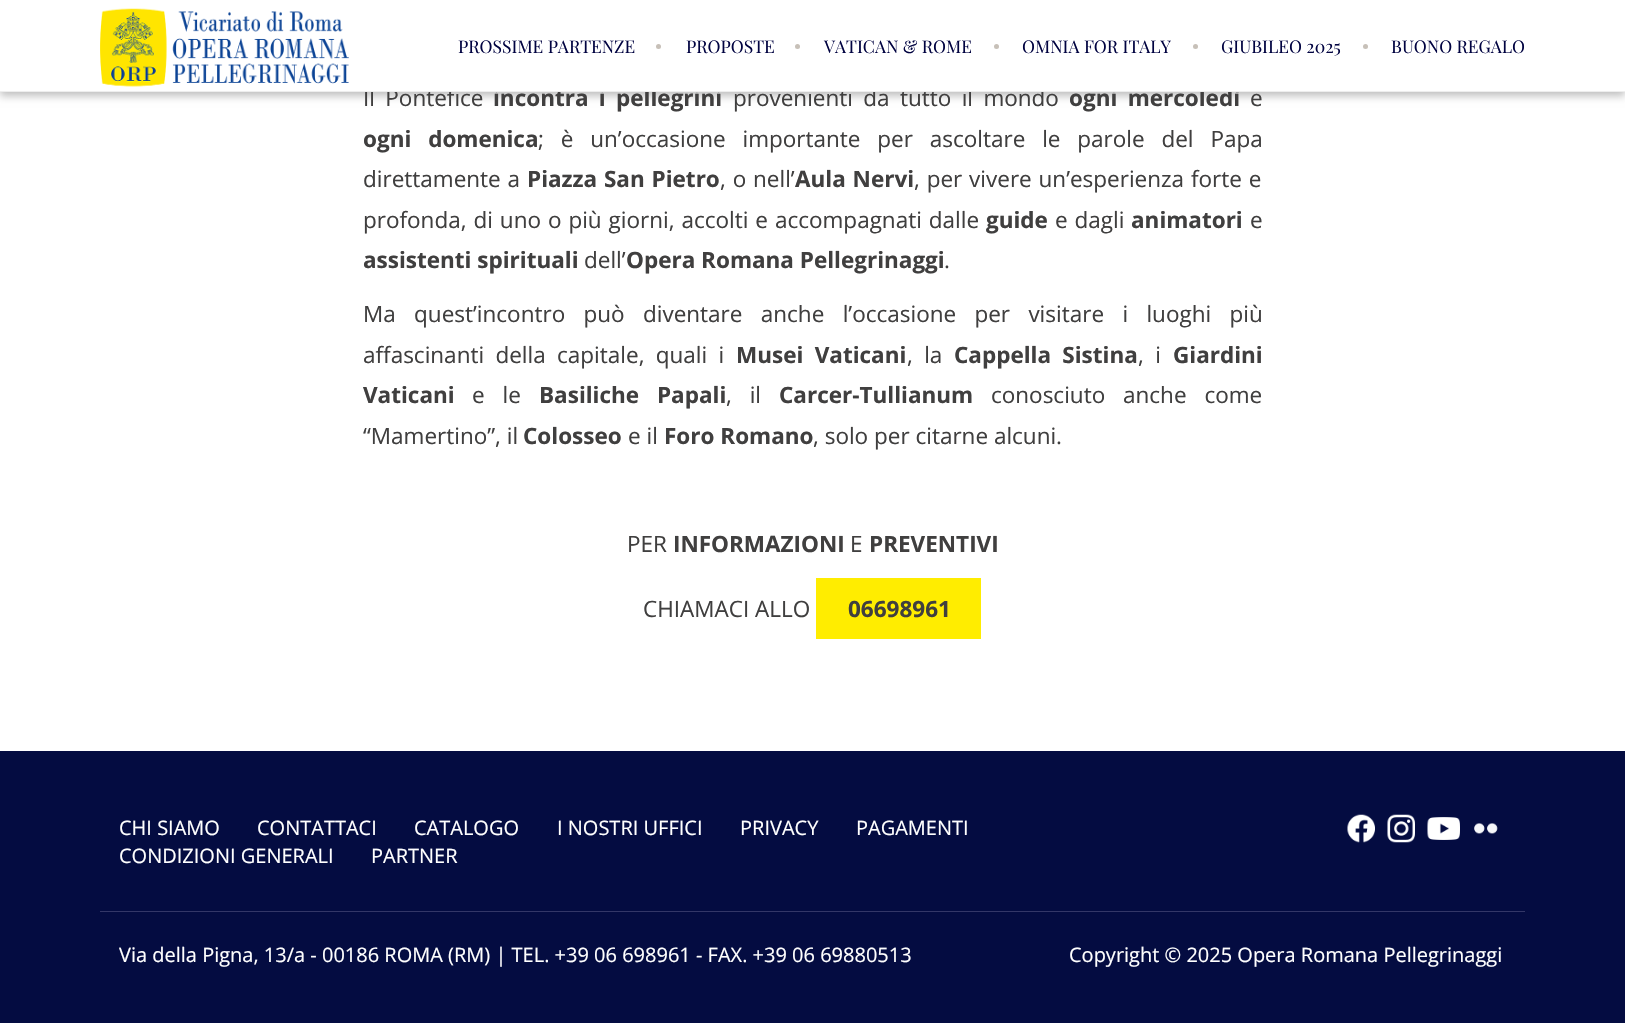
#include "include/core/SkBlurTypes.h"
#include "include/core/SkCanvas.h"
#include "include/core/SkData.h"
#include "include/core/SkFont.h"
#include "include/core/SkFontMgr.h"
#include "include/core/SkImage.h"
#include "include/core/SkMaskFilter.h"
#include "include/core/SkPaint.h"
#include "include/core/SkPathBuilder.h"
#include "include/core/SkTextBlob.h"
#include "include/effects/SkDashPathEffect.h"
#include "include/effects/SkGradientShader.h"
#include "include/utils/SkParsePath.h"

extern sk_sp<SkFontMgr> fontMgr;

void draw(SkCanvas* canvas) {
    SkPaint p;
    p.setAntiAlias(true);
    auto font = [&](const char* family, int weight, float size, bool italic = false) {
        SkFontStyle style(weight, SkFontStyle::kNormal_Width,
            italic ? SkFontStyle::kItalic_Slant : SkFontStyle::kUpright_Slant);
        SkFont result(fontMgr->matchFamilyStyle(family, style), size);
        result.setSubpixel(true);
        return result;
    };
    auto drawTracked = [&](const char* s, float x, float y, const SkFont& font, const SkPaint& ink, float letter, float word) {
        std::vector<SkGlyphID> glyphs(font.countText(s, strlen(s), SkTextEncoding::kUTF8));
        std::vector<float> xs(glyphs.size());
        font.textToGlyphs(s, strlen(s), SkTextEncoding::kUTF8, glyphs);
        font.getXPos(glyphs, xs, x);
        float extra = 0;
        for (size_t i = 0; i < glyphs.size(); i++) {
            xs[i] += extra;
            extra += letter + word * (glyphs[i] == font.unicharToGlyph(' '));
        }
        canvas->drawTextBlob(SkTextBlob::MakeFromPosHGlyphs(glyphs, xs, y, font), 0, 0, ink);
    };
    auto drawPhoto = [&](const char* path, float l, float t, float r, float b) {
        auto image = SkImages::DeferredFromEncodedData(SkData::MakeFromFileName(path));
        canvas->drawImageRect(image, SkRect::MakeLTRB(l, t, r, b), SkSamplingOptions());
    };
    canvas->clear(0xFFFFFFFF);
    p.setColor(0x40000000);
    p.setMaskFilter(SkMaskFilter::MakeBlur(kNormal_SkBlurStyle, 4));
    canvas->drawRect(SkRect::MakeLTRB(0, -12, 1625, 96), p);
    p.setMaskFilter(nullptr);
    auto font1 = font("Open Sans", 400, 22.5f);
    p.setColor(0xFF403F3F);
    drawTracked("Il Pontefice", 363, 106, font1, p, 0, 4.5f);
    auto font2 = font("Open Sans", 700, 22.5f);
    drawTracked("incontra i pellegrini", 493, 106, font2, p, 0, 4.5f);
    drawTracked("provenienti da tutto il mondo", 733, 106, font1, p, 0, 4.5f);
    drawTracked("ogni mercoledì", 1069, 106, font2, p, 0, 4.5f);
    p.setColor(0xFFFFFFFF);
    canvas->drawRect(SkRect::MakeLTRB(0, 0, 1625, 91), p);
    p.setColor(0xFFEEEEEE);
    canvas->drawRect(SkRect::MakeLTRB(0, 91, 1625, 92), p);
    drawPhoto("media/1.png", 100, 8, 349, 87);
    auto font3 = font("Playfair Display", 400, 17.5f);
    p.setColor(0xFF010341);
    canvas->drawString("PROSSIME PARTENZE", 458, 53, font3, p);
    p.setColor(0xFFC7C0B8);
    canvas->drawCircle(658.5f, 46.5f, 2.5f, p);
    p.setColor(0xFF010341);
    canvas->drawString("PROPOSTE", 686, 53, font3, p);
    p.setColor(0xFFC7C0B8);
    canvas->drawCircle(797.5f, 46.5f, 2.5f, p);
    p.setColor(0xFF010341);
    canvas->drawString("VATICAN & ROME", 824, 53, font3, p);
    p.setColor(0xFFC7C0B8);
    canvas->drawCircle(996.5f, 46.5f, 2.5f, p);
    p.setColor(0xFF010341);
    canvas->drawString("OMNIA FOR ITALY", 1022, 53, font3, p);
    p.setColor(0xFFC7C0B8);
    canvas->drawCircle(1195.5f, 46.5f, 2.5f, p);
    p.setColor(0xFF010341);
    canvas->drawString("GIUBILEO 2025", 1221, 53, font3, p);
    p.setColor(0xFFC7C0B8);
    canvas->drawCircle(1365.5f, 46.5f, 2.5f, p);
    p.setColor(0xFF010341);
    canvas->drawString("BUONO REGALO", 1391, 53, font3, p);
    p.setColor(0xFF403F3F);
    canvas->drawString("e", 1250, 106, font1, p);
    drawTracked("ogni domenica", 363, 147, font2, p, 0, 11);
    drawTracked("; è un’occasione importante per ascoltare le parole del Papa", 538, 147, font1, p, 0, 11);
    drawTracked("direttamente a", 363, 187, font1, p, 0, 1);
    drawTracked("Piazza San Pietro", 527, 187, font2, p, 0, 1);
    drawTracked(", o nell’", 720, 187, font1, p, 0, 1);
    drawTracked("Aula Nervi", 795, 187, font2, p, 0, 1);
    drawTracked(", per vivere un’esperienza forte e", 914, 187, font1, p, 0, 1);
    drawTracked("profonda, di uno o più giorni, accolti e accompagnati dalle", 363, 228, font1, p, 0, 1.1f);
    canvas->drawString("guide", 986, 228, font2, p);
    drawTracked("e dagli", 1055, 228, font1, p, 0, 1.1f);
    canvas->drawString("animatori", 1131, 228, font2, p);
    canvas->drawString("e", 1250, 228, font1, p);
    canvas->drawString("assistenti spirituali", 363, 268, font2, p);
    canvas->drawString("dell’", 584, 268, font1, p);
    canvas->drawString("Opera Romana Pellegrinaggi", 626, 268, font2, p);
    canvas->drawString(".", 944, 268, font1, p);
    drawTracked("Ma quest’incontro può diventare anche l’occasione per visitare i luoghi più", 363, 322, font1, p, 0, 12.5f);
    drawTracked("affascinanti della capitale, quali i", 363, 363, font1, p, 0, 5.5f);
    drawTracked("Musei Vaticani", 736, 363, font2, p, 0, 5.5f);
    drawTracked(", la", 907, 363, font1, p, 0, 5.5f);
    drawTracked("Cappella Sistina", 954, 363, font2, p, 0, 5.5f);
    drawTracked(", i", 1138, 363, font1, p, 0, 5.5f);
    canvas->drawString("Giardini", 1173, 363, font2, p);
    canvas->drawString("Vaticani", 363, 403, font2, p);
    drawTracked("e le", 472, 403, font1, p, 0, 12);
    drawTracked("Basiliche Papali", 539, 403, font2, p, 0, 12);
    drawTracked(", il", 726, 403, font1, p, 0, 12);
    canvas->drawString("Carcer-Tullianum", 779, 403, font2, p);
    drawTracked("conosciuto anche come", 991, 403, font1, p, 0, 12);
    canvas->drawString("“Mamertino”, il", 363, 444, font1, p);
    canvas->drawString("Colosseo", 523, 444, font2, p);
    canvas->drawString("e il", 628, 444, font1, p);
    canvas->drawString("Foro Romano", 664, 444, font2, p);
    canvas->drawString(", solo per citarne alcuni.", 813, 444, font1, p);
    canvas->drawString("PER", 627, 552, font1, p);
    canvas->drawString("INFORMAZIONI", 673, 552, font2, p);
    canvas->drawString("E", 850, 552, font1, p);
    canvas->drawString("PREVENTIVI", 869, 552, font2, p);
    canvas->drawString("CHIAMACI ALLO", 643, 617, font1, p);
    p.setColor(0xFFFFED00);
    canvas->drawRect(SkRect::MakeLTRB(816, 578, 981, 639), p);
    p.setColor(0xFF403F3F);
    canvas->drawString("06698961", 848, 617, font2, p);
    p.setColor(0xFF040C41);
    canvas->drawRect(SkRect::MakeLTRB(0, 751, 1625, 1023), p);
    auto font4 = font("Open Sans", 400, 20);
    p.setColor(0xFFFFFFFF);
    {
        const struct { const char* s; float x, y; } items[] = {
            {"CHI SIAMO", 119, 835},
            {"CONTATTACI", 257, 835},
            {"CATALOGO", 414, 835},
            {"I NOSTRI UFFICI", 557, 835},
            {"PRIVACY", 740, 835},
            {"PAGAMENTI", 856, 835},
            {"CONDIZIONI GENERALI", 119, 863},
            {"PARTNER", 371, 863},
        };
        for (auto [s, x, y] : items) {
            canvas->drawString(s, x, y, font4, p);
        }
    }
    drawPhoto("media/2.png", 1347, 814, 1375, 843);
    drawPhoto("media/3.png", 1387, 814, 1415, 843);
    drawPhoto("media/4.png", 1427, 817, 1460, 840);
    drawPhoto("media/5.png", 1474, 823, 1498, 834);
    p.setColor(0xFF333767);
    canvas->drawRect(SkRect::MakeLTRB(100, 911, 1525, 912), p);
    p.setColor(0xFFFFFFFF);
    canvas->drawString("Via della Pigna, 13/a - 00186 ROMA (RM) | TEL. +39 06 698961 - FAX. +39 06 69880513", 119, 962, font4, p);
    canvas->drawString("Copyright © 2025 Opera Romana Pellegrinaggi", 1069, 962, font4, p);
}
